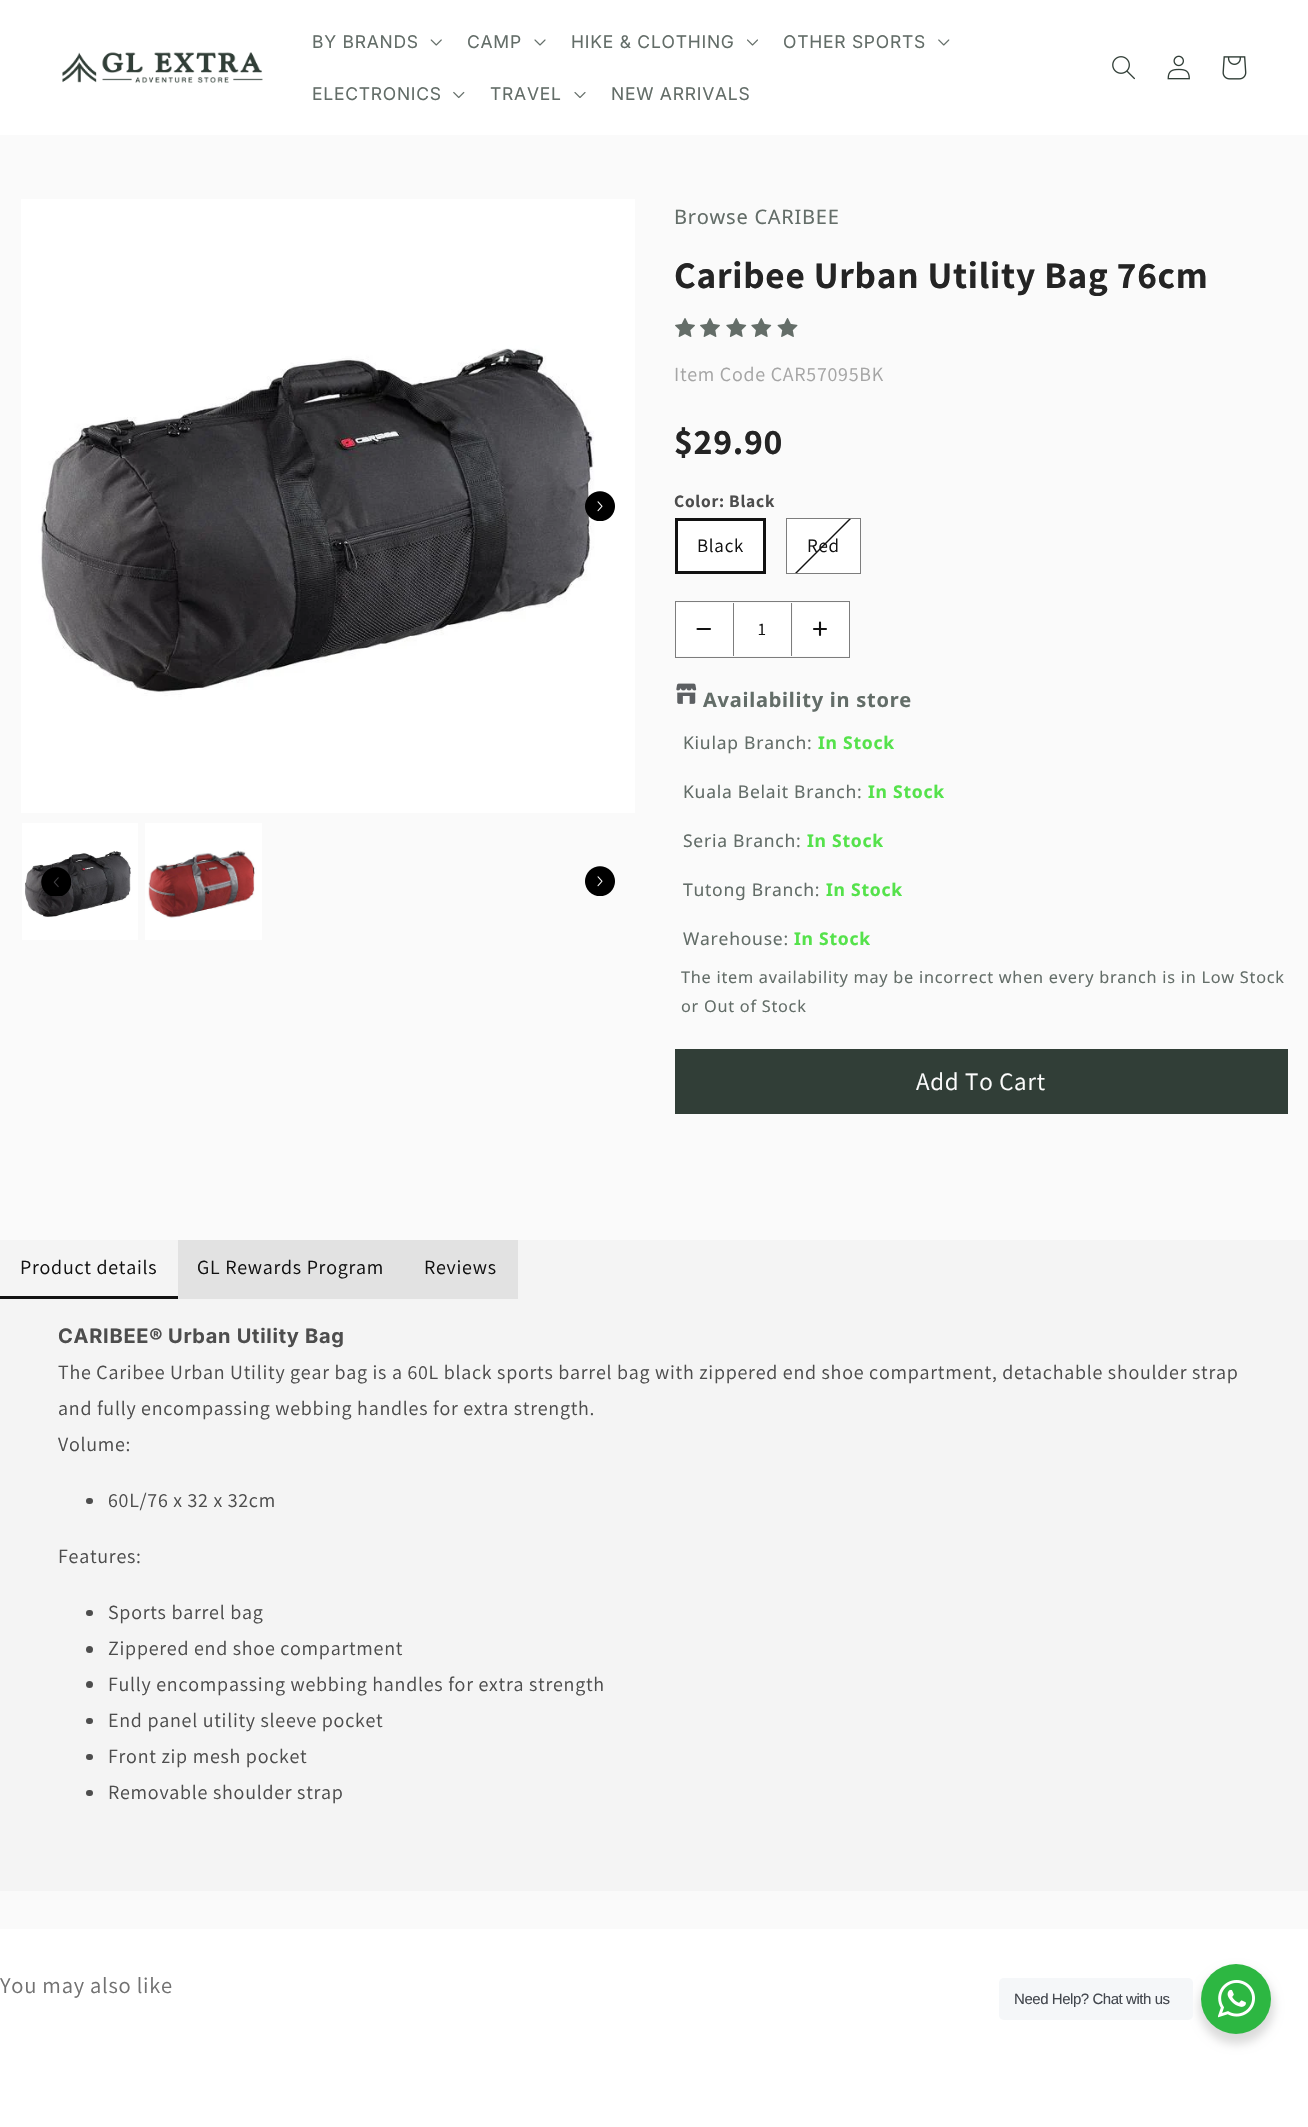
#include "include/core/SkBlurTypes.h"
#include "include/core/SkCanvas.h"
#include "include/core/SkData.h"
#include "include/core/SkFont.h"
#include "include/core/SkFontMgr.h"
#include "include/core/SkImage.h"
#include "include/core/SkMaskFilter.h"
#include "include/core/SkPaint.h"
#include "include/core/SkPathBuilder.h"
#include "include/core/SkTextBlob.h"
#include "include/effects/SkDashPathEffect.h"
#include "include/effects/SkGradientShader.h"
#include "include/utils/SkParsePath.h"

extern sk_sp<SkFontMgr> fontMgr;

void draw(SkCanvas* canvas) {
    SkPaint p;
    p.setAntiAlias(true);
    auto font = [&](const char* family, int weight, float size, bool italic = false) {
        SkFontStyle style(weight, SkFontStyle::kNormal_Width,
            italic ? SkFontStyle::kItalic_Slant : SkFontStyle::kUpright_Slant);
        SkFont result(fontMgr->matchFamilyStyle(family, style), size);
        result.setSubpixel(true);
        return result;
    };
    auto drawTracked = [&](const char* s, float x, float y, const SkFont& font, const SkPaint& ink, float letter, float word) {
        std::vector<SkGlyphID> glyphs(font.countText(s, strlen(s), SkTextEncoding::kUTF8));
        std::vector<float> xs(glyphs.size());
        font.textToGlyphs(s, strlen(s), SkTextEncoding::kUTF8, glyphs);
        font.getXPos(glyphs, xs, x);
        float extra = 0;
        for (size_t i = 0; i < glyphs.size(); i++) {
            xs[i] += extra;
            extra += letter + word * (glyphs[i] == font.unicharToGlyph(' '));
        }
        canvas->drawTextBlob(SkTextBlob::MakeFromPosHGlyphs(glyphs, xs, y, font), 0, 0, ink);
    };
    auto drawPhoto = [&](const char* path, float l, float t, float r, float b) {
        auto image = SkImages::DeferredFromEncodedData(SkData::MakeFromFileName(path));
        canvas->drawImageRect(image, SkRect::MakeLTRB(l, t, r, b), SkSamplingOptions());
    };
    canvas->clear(0xFFFFFFFF);
    drawPhoto("media/1.png", 62, 52, 263, 83);
    auto font1 = font("Inter", 400, 17.5f);
    p.setColor(0xFF636D68);
    drawTracked("BY BRANDS", 312, 48, font1, p, 0.75f, 0);
    drawPhoto("media/2.png", 430, 39, 442, 46);
    drawTracked("CAMP", 467, 48, font1, p, 0.75f, 0);
    drawPhoto("media/3.png", 534, 39, 546, 46);
    drawTracked("HIKE & CLOTHING", 571, 48, font1, p, 0.75f, 0);
    drawPhoto("media/4.png", 747, 39, 758, 46);
    drawTracked("OTHER SPORTS", 783, 48, font1, p, 0.75f, 0);
    drawPhoto("media/5.png", 938, 39, 950, 46);
    drawTracked("ELECTRONICS", 312, 100, font1, p, 0.75f, 0);
    drawPhoto("media/6.png", 453, 91, 465, 99);
    drawTracked("TRAVEL", 490, 100, font1, p, 0.75f, 0);
    drawPhoto("media/7.png", 574, 92, 586, 98);
    drawTracked("NEW ARRIVALS", 611, 100, font1, p, 0.75f, 0);
    drawPhoto("media/8.png", 1112, 56, 1135, 80);
    drawPhoto("media/9.png", 1167, 55, 1190, 80);
    drawPhoto("media/10.png", 1222, 56, 1247, 80);
    p.setColor(0xFFFAFAFA);
    canvas->drawRect(SkRect::MakeLTRB(0, 135, 1308, 1929), p);
    drawPhoto("media/11.png", 21, 199, 635, 813);
    drawPhoto("media/12.png", 585, 491, 615, 521);
    drawPhoto("media/13.png", 22, 823, 138, 940);
    drawPhoto("media/14.png", 145, 823, 262, 940);
    drawPhoto("media/15.png", 585, 866, 615, 896);
    drawPhoto("media/16.png", 41, 867, 71, 896);
    auto font2 = font("Noto Sans", 400, 20);
    p.setColor(0xFF636D68);
    drawTracked("Browse CARIBEE", 674, 224, font2, p, 0.75f, 0);
    auto font3 = font("Assistant", 700, 37.5f);
    p.setColor(0xFF242424);
    drawTracked("Caribee Urban Utility Bag 76cm", 674, 288, font3, p, 0.75f, 0);
    drawPhoto("media/17.png", 675, 318, 695, 337);
    drawPhoto("media/17.png", 700, 318, 720, 337);
    drawPhoto("media/18.png", 726, 318, 747, 337);
    drawPhoto("media/18.png", 751, 318, 772, 337);
    drawPhoto("media/19.png", 777, 318, 798, 337);
    auto font4 = font("Assistant", 200, 20);
    p.setColor(0xFFA5A5A5);
    drawTracked("Item Code CAR57095BK", 674, 381, font4, p, 0.75f, 0);
    auto font5 = font("Assistant", 700, 36);
    p.setColor(0xFF242424);
    drawTracked("$29.90", 674, 454, font5, p, 0.75f, 0);
    auto font6 = font("Assistant", 700, 17.5f);
    p.setColor(0xFF4D4D4D);
    drawTracked("Color: Black", 674, 507, font6, p, 0.75f, 0);
    p.setColor(0xFFFFFFFF);
    canvas->drawRect(SkRect::MakeLTRB(676.5f, 519.5f, 764.5f, 572.5f), p);
    p.setStyle(SkPaint::kStroke_Style);
    p.setStrokeWidth(3);
    p.setColor(0xFF121212);
    canvas->drawRect(SkRect::MakeLTRB(676.5f, 519.5f, 764.5f, 572.5f), p);
    auto font7 = font("Assistant", 200, 19);
    p.setStyle(SkPaint::kFill_Style);
    drawTracked("Black", 697, 552, font7, p, 0.75f, 0);
    p.setColor(0xFFFFFFFF);
    canvas->drawRect(SkRect::MakeLTRB(786.5f, 518.5f, 860.5f, 573.5f), p);
    p.setStyle(SkPaint::kStroke_Style);
    p.setStrokeWidth(1);
    p.setColor(0xFF7D7D7D);
    canvas->drawRect(SkRect::MakeLTRB(786.5f, 518.5f, 860.5f, 573.5f), p);
    canvas->save();
    canvas->clipRect(SkRect::MakeLTRB(788, 519, 860, 573));
    p.setStyle(SkPaint::kFill_Style);
    p.setColor(0xFF121212);
    canvas->drawPath(SkPathBuilder().moveTo(734, 634).lineTo(911, 457).lineTo(912, 458).lineTo(735, 635).close().detach(), p);
    canvas->restore();
    drawTracked("Red", 807, 552, font7, p, 0.75f, 0);
    p.setStyle(SkPaint::kStroke_Style);
    p.setColor(0xFF7D7D7D);
    canvas->drawRect(SkRect::MakeLTRB(675.5f, 601.5f, 849.5f, 657.5f), p);
    p.setStyle(SkPaint::kFill_Style);
    p.setColor(0xFFFFFFFF);
    canvas->drawRect(SkRect::MakeLTRB(676, 603, 733, 656), p);
    p.setStyle(SkPaint::kStroke_Style);
    p.setStrokeWidth(2.1f);
    p.setStrokeCap(SkPaint::kRound_Cap);
    p.setStrokeJoin(SkPaint::kRound_Join);
    p.setColor(0xFF121212);
    canvas->drawPath(SkPathBuilder().moveTo(710, 629).lineTo(697.5f, 629).detach(), p);
    p.setStyle(SkPaint::kFill_Style);
    {
        const struct { float l, t, r, b; SkColor color; } items[] = {
            {734, 603, 791, 656, 0xFFFFFFFF},
            {791, 603, 792, 656, 0xFF7D7D7D},
            {733, 603, 734, 656, 0xFF7D7D7D},
        };
        for (auto [l, t, r, b, color] : items) {
            p.setColor(color);
            canvas->drawRect(SkRect::MakeLTRB(l, t, r, b), p);
        }
    }
    auto font8 = font("Assistant", 200, 17.5f);
    p.setColor(0xFF121212);
    drawTracked("1", 758, 635, font8, p, 0.75f, 0);
    p.setColor(0xFFFFFFFF);
    canvas->drawRect(SkRect::MakeLTRB(793, 603, 849, 656), p);
    p.setStyle(SkPaint::kStroke_Style);
    p.setColor(0xFF121212);
    canvas->drawPath(SkPathBuilder().moveTo(820, 622.5f).lineTo(820, 629).moveTo(820, 629).lineTo(820, 635).moveTo(820, 629).lineTo(826, 629).moveTo(820, 629).lineTo(814, 629).detach(), p);
    drawPhoto("media/20.png", 676, 683, 697, 704);
    auto font9 = font("Noto Sans", 700, 20);
    p.setStyle(SkPaint::kFill_Style);
    p.setColor(0xFF636D68);
    drawTracked("Availability in store", 703, 707, font9, p, 0.75f, 0);
    auto font10 = font("Noto Sans", 400, 17.5f);
    drawTracked("Kiulap Branch:", 683, 749, font10, p, 0.75f, 0);
    auto font11 = font("Noto Sans", 700, 17.5f);
    p.setColor(0xFF55E24B);
    drawTracked("In Stock", 818, 749, font11, p, 0.75f, 0);
    p.setColor(0xFF636D68);
    drawTracked("Kuala Belait Branch:", 683, 798, font10, p, 0.75f, 0);
    p.setColor(0xFF55E24B);
    drawTracked("In Stock", 868, 798, font11, p, 0.75f, 0);
    p.setColor(0xFF636D68);
    drawTracked("Seria Branch:", 683, 847, font10, p, 0.75f, 0);
    p.setColor(0xFF55E24B);
    drawTracked("In Stock", 807, 847, font11, p, 0.75f, 0);
    p.setColor(0xFF636D68);
    drawTracked("Tutong Branch:", 683, 896, font10, p, 0.75f, 0);
    p.setColor(0xFF55E24B);
    drawTracked("In Stock", 826, 896, font11, p, 0.75f, 0);
    p.setColor(0xFF636D68);
    drawTracked("Warehouse:", 683, 945, font10, p, 0.75f, 0);
    p.setColor(0xFF55E24B);
    drawTracked("In Stock", 794, 945, font11, p, 0.75f, 0);
    auto font12 = font("Noto Sans", 400, 16.25f);
    p.setColor(0xFF636D68);
    drawTracked("The item availability may be incorrect when every branch is in Low Stock", 681, 983, font12, p, 0.75f, 0);
    drawTracked("or Out of Stock", 681, 1012, font12, p, 0.75f, 0);
    p.setColor(0xFF313E37);
    canvas->drawRect(SkRect::MakeLTRB(675, 1049, 1288, 1114), p);
    auto font13 = font("Assistant", 200, 25);
    p.setColor(0xFFFDFDFD);
    drawTracked("Add To Cart", 916, 1090, font13, p, 0.75f, 0);
    p.setColor(0xFFF4F4F4);
    canvas->drawRect(SkRect::MakeLTRB(0, 1240, 1308, 1891), p);
    p.setColor(0xFF121212);
    canvas->drawRect(SkRect::MakeLTRB(0, 1296, 178, 1299), p);
    drawTracked("Product details", 20, 1274, font4, p, 0.75f, 0);
    p.setColor(0xFFE2E2E2);
    canvas->drawRect(SkRect::MakeLTRB(178, 1240, 518, 1299), p);
    p.setColor(0xFF121212);
    drawTracked("GL Rewards Program", 197, 1274, font4, p, 0.75f, 0);
    drawTracked("Reviews", 424, 1274, font4, p, 0.75f, 0);
    auto font14 = font("Inter", 700, 20);
    p.setColor(0xFF4D4D4D);
    drawTracked("CARIBEE®", 58, 1343, font14, p, 0.75f, 0);
    drawTracked("Urban Utility Bag", 168, 1343, font14, p, 0.75f, 0);
    {
        const struct { const char* s; float x, y; } items[] = {
            {"The Caribee Urban Utility gear bag is a 60L black sports barrel bag with zippered end shoe compartment, detachable shoulder strap", 58, 1379},
            {"and fully encompassing webbing handles for extra strength.", 58, 1415},
            {"Volume:", 58, 1451},
        };
        for (auto [s, x, y] : items) {
            drawTracked(s, x, y, font4, p, 0.75f, 0);
        }
    }
    canvas->drawRoundRect(SkRect::MakeLTRB(86, 1498, 93, 1504), 3, 3, p);
    drawTracked("60L/76 x 32 x 32cm", 108, 1507, font4, p, 0.75f, 0);
    drawTracked("Features:", 58, 1563, font4, p, 0.75f, 0);
    canvas->drawRoundRect(SkRect::MakeLTRB(86, 1610, 93, 1616), 3, 3, p);
    drawTracked("Sports barrel bag", 108, 1619, font4, p, 0.75f, 0);
    canvas->drawCircle(89.5f, 1649.5f, 3.5f, p);
    drawTracked("Zippered end shoe compartment", 108, 1655, font4, p, 0.75f, 0);
    canvas->drawCircle(89.5f, 1684.5f, 3.5f, p);
    drawTracked("Fully encompassing webbing handles for extra strength", 108, 1691, font4, p, 0.75f, 0);
    canvas->drawRoundRect(SkRect::MakeLTRB(86, 1718, 93, 1724), 3, 3, p);
    drawTracked("End panel utility sleeve pocket", 108, 1727, font4, p, 0.75f, 0);
    canvas->drawRoundRect(SkRect::MakeLTRB(86, 1754, 93, 1760), 3, 3, p);
    drawTracked("Front zip mesh pocket", 108, 1763, font4, p, 0.75f, 0);
    canvas->drawRoundRect(SkRect::MakeLTRB(86, 1790, 93, 1796), 3, 3, p);
    drawTracked("Removable shoulder strap", 108, 1799, font4, p, 0.75f, 0);
    auto font15 = font("Assistant", 200, 22.5f);
    p.setColor(0xFF717171);
    drawTracked("You may also like", 0, 1993, font15, p, 0.75f, 0);
    p.setColor(0x24000000);
    p.setMaskFilter(SkMaskFilter::MakeBlur(kNormal_SkBlurStyle, 5));
    canvas->drawRoundRect(SkRect::MakeLTRB(1199, 1969, 1274, 2044), 37.5f, 37.5f, p);
    p.setMaskFilter(nullptr);
    p.setColor(0xFFF5F7F9);
    canvas->drawRoundRect(SkRect::MakeLTRB(999, 1978, 1193, 2020), 5, 5, p);
    auto font16 = font("Liberation Sans", 400, 15);
    p.setColor(0xFF43474E);
    drawTracked("Need Help? Chat with us", 1014, 2004, font16, p, -0.45f, 0);
    p.setColor(0xFF2DB742);
    canvas->drawCircle(1236, 1999, 35, p);
    drawPhoto("media/21.png", 1218, 1980, 1255, 2018);
}
